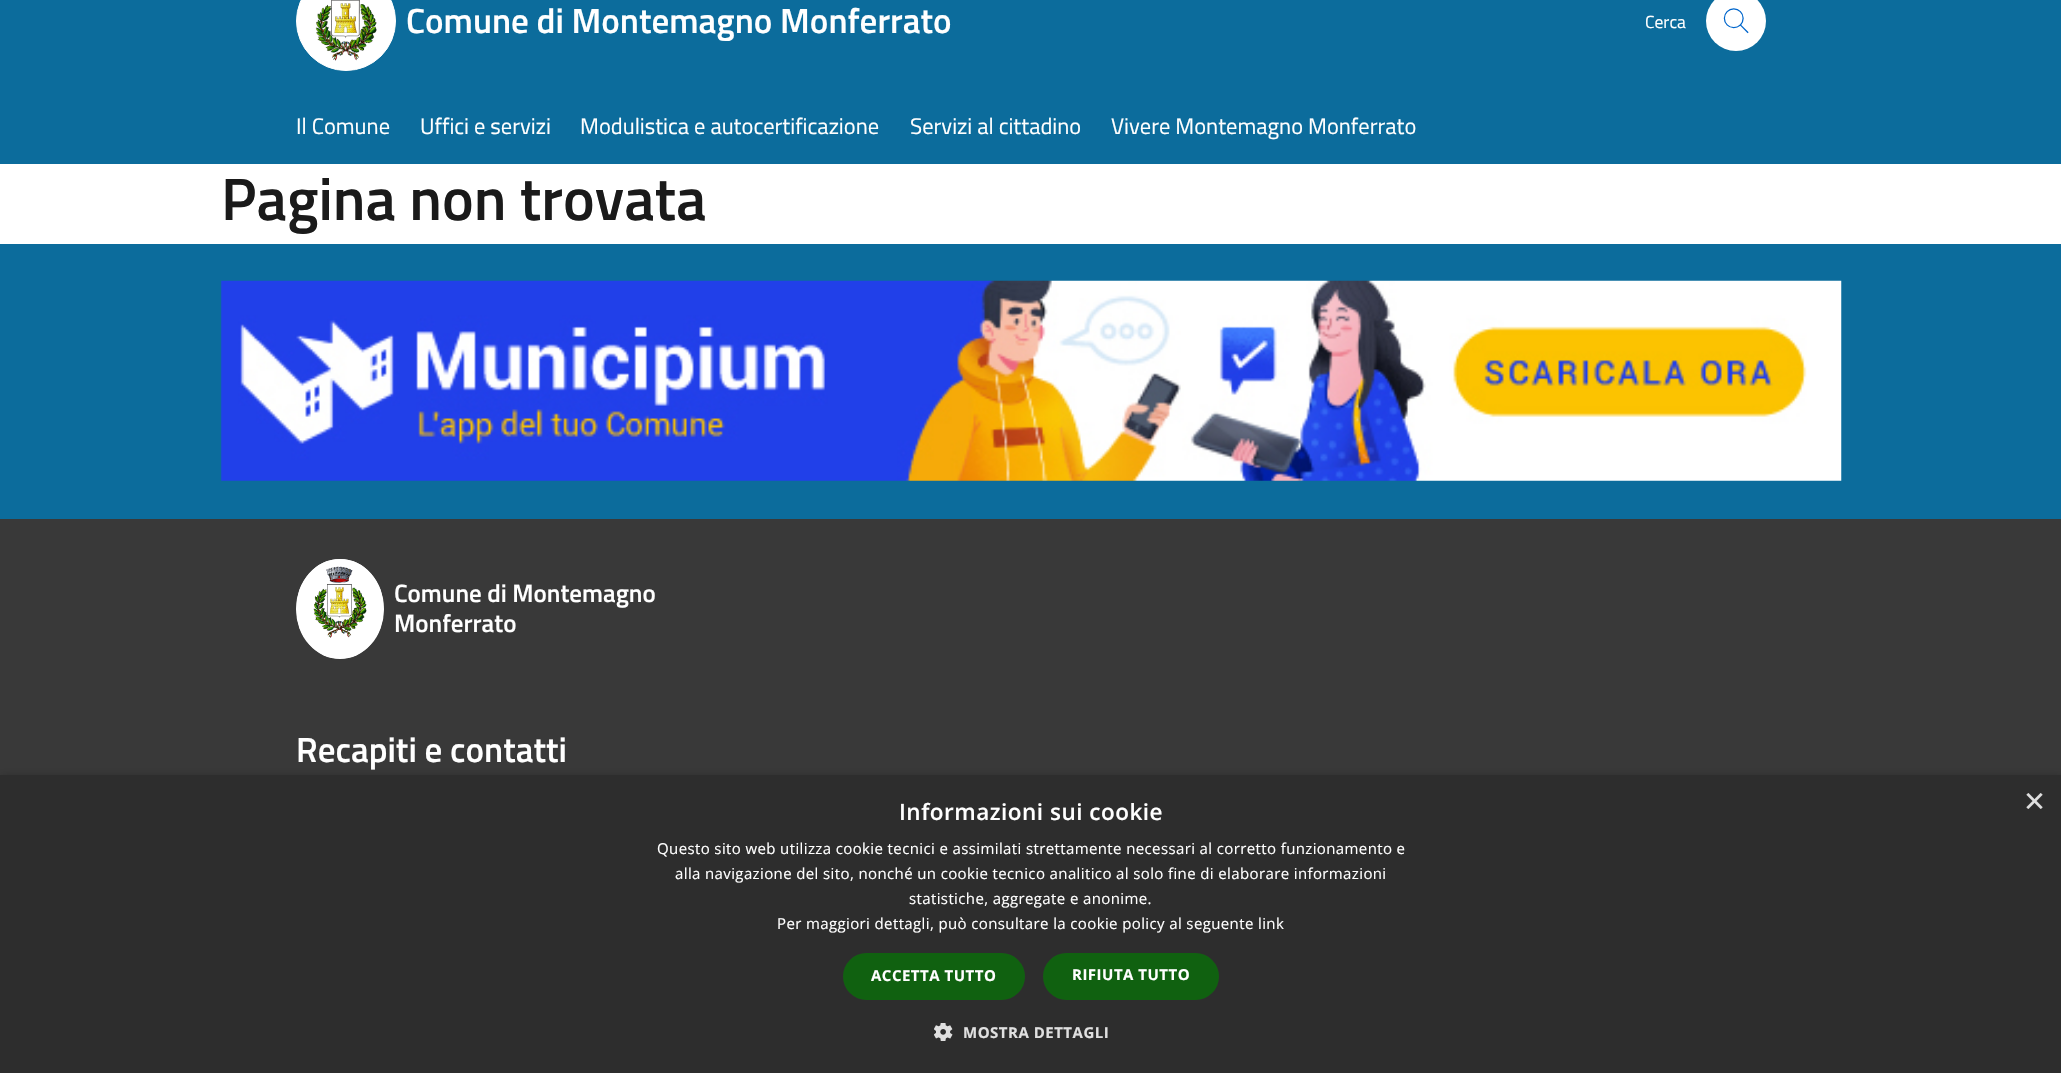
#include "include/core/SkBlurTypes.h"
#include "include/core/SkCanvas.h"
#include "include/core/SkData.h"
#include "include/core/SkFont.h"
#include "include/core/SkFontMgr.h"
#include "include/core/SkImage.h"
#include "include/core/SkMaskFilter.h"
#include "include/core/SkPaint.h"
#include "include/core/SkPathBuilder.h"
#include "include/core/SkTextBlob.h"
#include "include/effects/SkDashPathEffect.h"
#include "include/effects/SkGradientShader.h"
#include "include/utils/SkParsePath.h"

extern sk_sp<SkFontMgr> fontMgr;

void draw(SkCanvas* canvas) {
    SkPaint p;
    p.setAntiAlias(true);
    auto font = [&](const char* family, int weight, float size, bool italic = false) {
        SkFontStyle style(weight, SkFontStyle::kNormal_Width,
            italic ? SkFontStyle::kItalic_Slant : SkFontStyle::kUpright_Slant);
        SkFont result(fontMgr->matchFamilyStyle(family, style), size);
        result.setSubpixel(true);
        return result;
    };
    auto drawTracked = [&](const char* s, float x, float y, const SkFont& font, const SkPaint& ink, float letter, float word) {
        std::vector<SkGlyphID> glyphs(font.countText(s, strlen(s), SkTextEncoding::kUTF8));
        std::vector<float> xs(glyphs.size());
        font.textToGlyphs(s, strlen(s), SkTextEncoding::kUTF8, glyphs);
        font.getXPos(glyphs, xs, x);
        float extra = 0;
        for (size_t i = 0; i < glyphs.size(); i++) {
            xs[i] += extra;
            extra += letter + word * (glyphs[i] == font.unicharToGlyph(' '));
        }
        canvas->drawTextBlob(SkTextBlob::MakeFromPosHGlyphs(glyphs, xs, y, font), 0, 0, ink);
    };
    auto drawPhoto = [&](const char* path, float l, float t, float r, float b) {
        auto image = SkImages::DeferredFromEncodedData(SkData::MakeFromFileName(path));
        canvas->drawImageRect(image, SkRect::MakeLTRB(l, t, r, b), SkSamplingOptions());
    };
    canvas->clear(0xFFFFFFFF);
    p.setColor(0xFF0C6C9C);
    canvas->drawRect(SkRect::MakeLTRB(0, 0, 2061, 164), p);
    p.setColor(0xFFFFFFFF);
    canvas->drawCircle(346, 21, 49.5f, p);
    p.setStyle(SkPaint::kStroke_Style);
    p.setStrokeWidth(1);
    canvas->drawCircle(346, 21, 49.5f, p);
    drawPhoto("media/1.png", 315, 0, 377, 61);
    auto font1 = font("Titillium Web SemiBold", 600, 35);
    p.setStyle(SkPaint::kFill_Style);
    canvas->drawString("Comune di Montemagno Monferrato", 406, 33, font1, p);
    auto font2 = font("Titillium Web", 400, 17.5f);
    canvas->drawString("Cerca", 1645, 28, font2, p);
    canvas->drawCircle(1736, 21, 30, p);
    drawPhoto("media/2.png", 1723, 8, 1749, 34);
    auto font3 = font("Titillium Web", 400, 22.5f);
    {
        const struct { const char* s; float x, y; } items[] = {
            {"Il Comune", 296, 134},
            {"Uffici e servizi", 420, 134},
            {"Modulistica e autocertificazione", 580, 134},
            {"Servizi al cittadino", 910, 134},
            {"Vivere Montemagno Monferrato", 1111, 134},
        };
        for (auto [s, x, y] : items) {
            canvas->drawString(s, x, y, font3, p);
        }
    }
    auto font4 = font("Titillium Web SemiBold", 600, 60);
    p.setColor(0xFF1A1A1A);
    canvas->drawString("Pagina non trovata", 221, 220, font4, p);
    p.setColor(0xFF393939);
    canvas->drawRect(SkRect::MakeLTRB(0, 519, 2061, 775), p);
    p.setColor(0xFF0C6C9C);
    canvas->drawRect(SkRect::MakeLTRB(0, 244, 2061, 519), p);
    drawPhoto("media/3.png", 221, 280, 1842, 481);
    p.setColor(0xFFFFFFFF);
    canvas->drawOval(SkRect::MakeLTRB(296, 559, 384, 659), p);
    p.setStyle(SkPaint::kStroke_Style);
    p.setStrokeWidth(1.2f);
    canvas->drawPath(SkPathBuilder().moveTo(340, 559.5f).cubicTo(364, 559.5f, 383, 581.5f, 383, 609).cubicTo(383, 636, 364, 658, 340, 658).cubicTo(316, 658, 297, 636, 297, 609).cubicTo(297, 581.5f, 316, 559.5f, 340, 559.5f).close().detach(), p);
    drawPhoto("media/4.png", 313, 561, 367, 638);
    auto font5 = font("Titillium Web SemiBold", 600, 25);
    p.setStyle(SkPaint::kFill_Style);
    canvas->drawString("Comune di Montemagno", 394, 602, font5, p);
    canvas->drawString("Monferrato", 394, 632, font5, p);
    canvas->drawString("Recapiti e contatti", 296, 762, font1, p);
    p.setColor(0x59000000);
    p.setMaskFilter(SkMaskFilter::MakeBlur(kNormal_SkBlurStyle, 5));
    canvas->drawRect(SkRect::MakeLTRB(1, 778, 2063, 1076), p);
    p.setMaskFilter(nullptr);
    p.setColor(0xFF2D2D2D);
    canvas->drawRect(SkRect::MakeLTRB(0, 775, 2061, 1073), p);
    auto font6 = font("Open Sans", 600, 22.5f);
    p.setColor(0xFFFFFFFF);
    drawTracked("Informazioni sui cookie", 899, 820, font6, p, 0.5f, 0);
    auto font7 = font("Liberation Sans", 400, 36);
    p.setColor(0xFFE0E0E0);
    canvas->drawString("×", 2024, 813, font7, p);
    auto font8 = font("Open Sans", 400, 15);
    p.setColor(0xFFFFFFFF);
    {
        const struct { const char* s; float x, y; } items[] = {
            {"Questo sito web utilizza cookie tecnici e assimilati strettamente necessari al corretto funzionamento e", 657, 854},
            {"alla navigazione del sito, nonché un cookie tecnico analitico al solo fine di elaborare informazioni", 675, 879},
            {"statistiche, aggregate e anonime.", 909, 904},
            {"Per maggiori dettagli, può consultare la cookie policy al seguente link", 777, 929},
        };
        for (auto [s, x, y] : items) {
            drawTracked(s, x, y, font8, p, 0.38f, 0);
        }
    }
    p.setColor(0xFF106110);
    canvas->drawRoundRect(SkRect::MakeLTRB(843, 953, 1025, 1000), 23.5f, 23.5f, p);
    auto font9 = font("Open Sans", 700, 15);
    p.setColor(0xFFFFFFFF);
    drawTracked("ACCETTA TUTTO", 871, 981, font9, p, 0.5f, 0);
    p.setColor(0xFF106110);
    canvas->drawRoundRect(SkRect::MakeLTRB(1043, 953, 1219, 1000), 23.5f, 23.5f, p);
    p.setColor(0xFFFFFFFF);
    drawTracked("RIFIUTA TUTTO", 1072, 980, font9, p, 0.5f, 0);
    drawPhoto("media/5.png", 934, 1023, 953, 1041);
    p.setColor(0xFFE0E0E0);
    drawTracked("MOSTRA DETTAGLI", 963, 1038, font9, p, 0.5f, 0);
}
